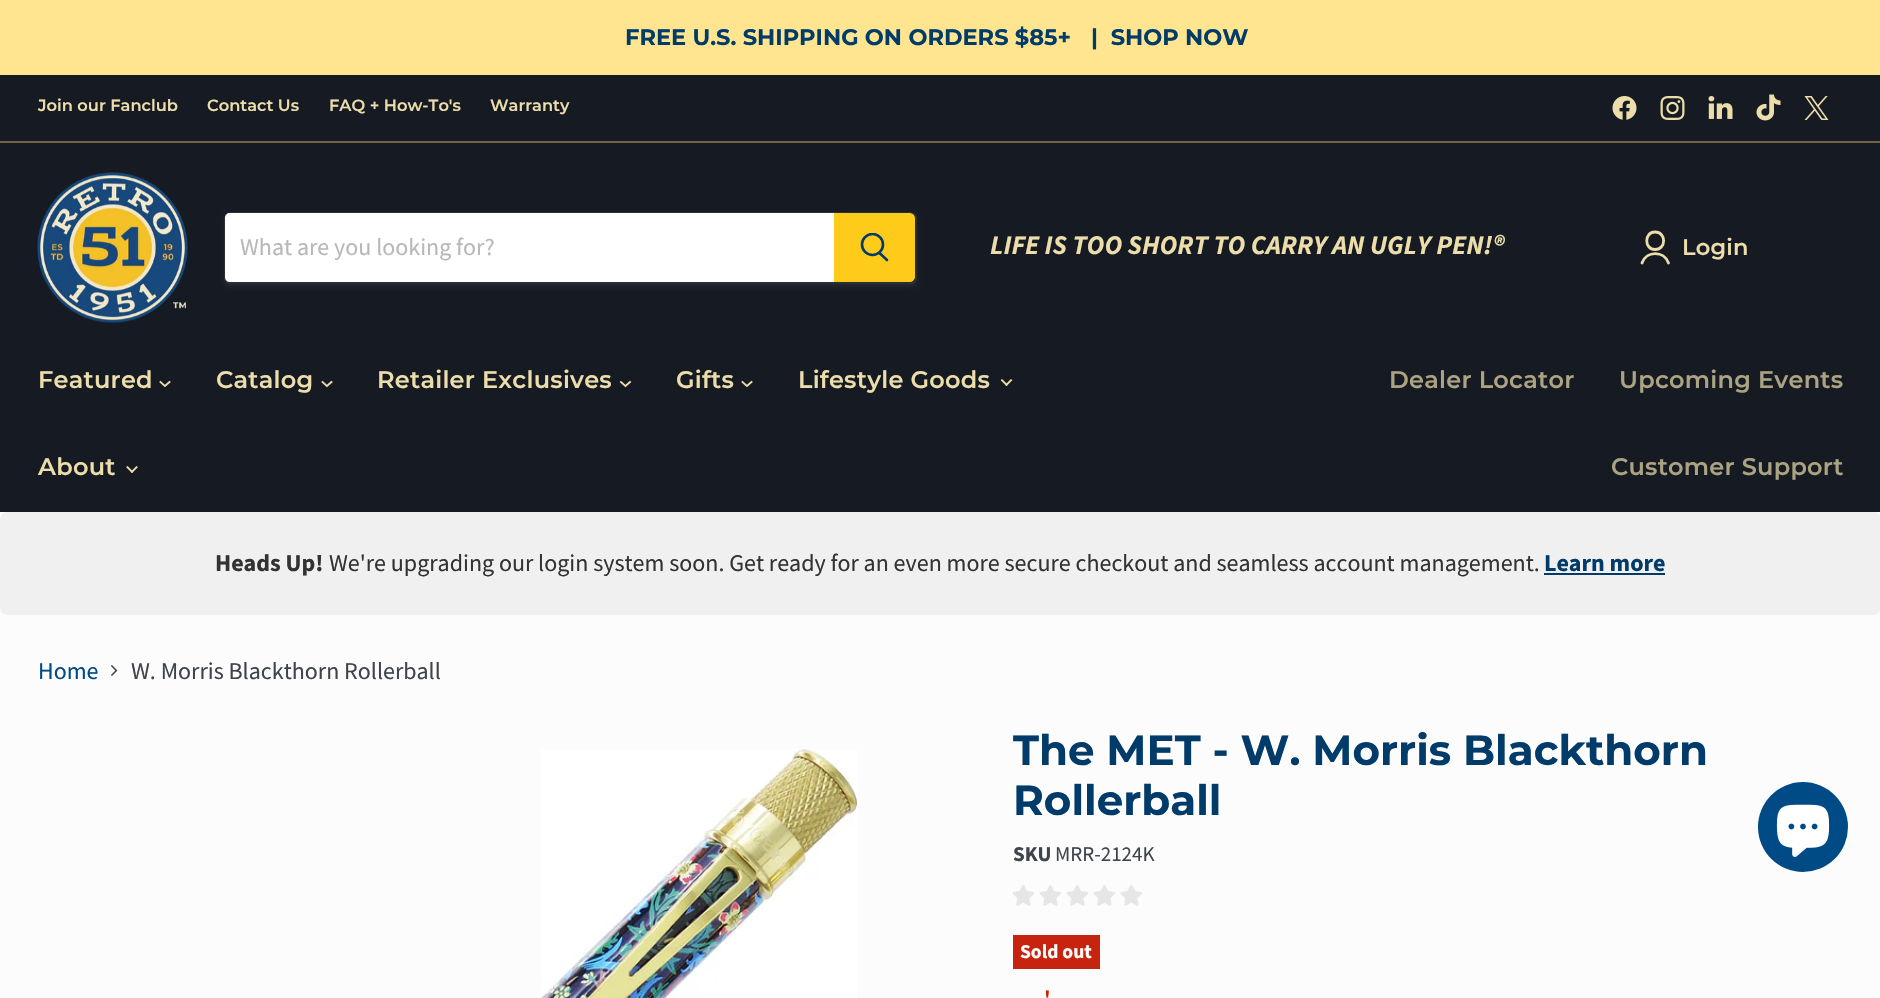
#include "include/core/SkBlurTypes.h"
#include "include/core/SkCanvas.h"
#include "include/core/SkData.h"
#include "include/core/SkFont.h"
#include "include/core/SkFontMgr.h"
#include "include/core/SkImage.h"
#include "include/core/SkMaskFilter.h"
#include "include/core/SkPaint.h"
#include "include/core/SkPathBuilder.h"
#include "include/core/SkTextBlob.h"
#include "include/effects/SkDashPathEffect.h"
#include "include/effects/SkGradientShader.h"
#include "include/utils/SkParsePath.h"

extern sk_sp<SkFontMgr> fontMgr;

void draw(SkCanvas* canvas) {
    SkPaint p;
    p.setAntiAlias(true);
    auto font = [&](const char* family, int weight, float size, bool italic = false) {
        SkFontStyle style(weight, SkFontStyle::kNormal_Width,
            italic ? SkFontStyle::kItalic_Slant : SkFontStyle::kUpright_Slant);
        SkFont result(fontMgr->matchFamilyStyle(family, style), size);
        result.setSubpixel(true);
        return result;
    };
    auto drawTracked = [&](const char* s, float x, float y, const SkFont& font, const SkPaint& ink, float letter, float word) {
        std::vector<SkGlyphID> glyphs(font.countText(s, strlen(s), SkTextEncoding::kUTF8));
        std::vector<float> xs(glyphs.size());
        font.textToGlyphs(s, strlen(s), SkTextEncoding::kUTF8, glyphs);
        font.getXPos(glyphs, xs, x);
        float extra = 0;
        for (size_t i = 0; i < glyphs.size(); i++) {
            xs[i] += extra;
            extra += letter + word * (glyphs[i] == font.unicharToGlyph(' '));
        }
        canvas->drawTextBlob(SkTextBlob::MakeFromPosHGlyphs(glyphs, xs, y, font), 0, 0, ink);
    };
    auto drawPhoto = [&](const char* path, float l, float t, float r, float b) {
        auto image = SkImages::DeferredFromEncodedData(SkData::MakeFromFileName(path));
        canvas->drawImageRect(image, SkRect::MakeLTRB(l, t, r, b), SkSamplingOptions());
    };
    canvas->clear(0xFFFCFCFC);
    p.setColor(0xFFFFE590);
    canvas->drawRect(SkRect::MakeLTRB(0, 0, 1880, 75), p);
    auto font1 = font("Montserrat", 700, 22.5f);
    p.setColor(0xFF003B69);
    canvas->drawString("FREE U.S. SHIPPING ON ORDERS $85+", 625, 45, font1, p);
    canvas->drawString("|   SHOP NOW", 1091, 45, font1, p);
    p.setColor(0xFF161B23);
    canvas->drawRect(SkRect::MakeLTRB(0, 75, 1880, 141), p);
    p.setColor(0xFF716642);
    canvas->drawRect(SkRect::MakeLTRB(0, 141, 1880, 143), p);
    auto font2 = font("Montserrat", 600, 16.25f);
    p.setColor(0xFFECDDAB);
    {
        const struct { const char* s; float x, y; } items[] = {
            {"Join our Fanclub", 38, 111},
            {"Contact Us", 207, 111},
            {"FAQ + How-To's", 329, 111},
            {"Warranty", 490, 111},
        };
        for (auto [s, x, y] : items) {
            canvas->drawString(s, x, y, font2, p);
        }
    }
    drawPhoto("media/1.png", 1612, 96, 1637, 120);
    drawPhoto("media/2.png", 1660, 96, 1685, 120);
    drawPhoto("media/3.png", 1708, 96, 1733, 119);
    drawPhoto("media/4.png", 1756, 94, 1781, 121);
    drawPhoto("media/5.png", 1804, 96, 1829, 120);
    p.setColor(0xFF161B23);
    canvas->drawRect(SkRect::MakeLTRB(0, 143, 1880, 512), p);
    drawPhoto("media/6.png", 37, 172, 188, 323);
    canvas->save();
    canvas->clipPath(SkPathBuilder(SkPathFillType::kEvenOdd).moveTo(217, 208).lineTo(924, 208).lineTo(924, 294).lineTo(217, 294).close().moveTo(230, 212).lineTo(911, 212).cubicTo(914.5f, 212, 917, 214.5f, 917, 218).lineTo(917, 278).cubicTo(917, 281.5f, 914.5f, 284, 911, 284).lineTo(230, 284).cubicTo(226.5f, 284, 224, 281.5f, 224, 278).lineTo(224, 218).cubicTo(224, 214.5f, 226.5f, 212, 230, 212).close().detach(), true);
    p.setColor(0x1C7E7E7E);
    p.setMaskFilter(SkMaskFilter::MakeBlur(kNormal_SkBlurStyle, 2));
    canvas->drawRoundRect(SkRect::MakeLTRB(224, 215, 917, 287), 6, 6, p);
    p.setMaskFilter(nullptr);
    canvas->restore();
    p.setStyle(SkPaint::kStroke_Style);
    p.setStrokeWidth(2);
    p.setColor(0x337E7E7E);
    canvas->drawRoundRect(SkRect::MakeLTRB(225, 213, 916, 283), 5, 5, p);
    p.setStyle(SkPaint::kFill_Style);
    p.setColor(0xFFFFFFFF);
    canvas->drawPath(SkPathBuilder().moveTo(230, 213).lineTo(834, 213).lineTo(834, 282).lineTo(230, 282).cubicTo(227, 282, 225, 280, 225, 277).lineTo(225, 218).cubicTo(225, 215, 227, 213, 230, 213).close().detach(), p);
    auto font3 = font("Source Sans Pro", 400, 24);
    p.setColor(0xFFB8B8B8);
    canvas->drawString("What are you looking for?", 240, 255, font3, p);
    p.setColor(0xFFFFCB1B);
    canvas->drawPath(SkPathBuilder().moveTo(835, 214).lineTo(910, 214).cubicTo(912, 214, 914, 216, 914, 218).lineTo(914, 277).cubicTo(914, 279, 912, 281, 910, 281).lineTo(835, 281).close().detach(), p);
    p.setStyle(SkPaint::kStroke_Style);
    canvas->drawPath(SkPathBuilder().moveTo(835, 214).lineTo(910, 214).cubicTo(912, 214, 914, 216, 914, 218).lineTo(914, 277).cubicTo(914, 279, 912, 281, 910, 281).lineTo(835, 281).close().detach(), p);
    p.setStrokeWidth(2.6f);
    p.setStrokeCap(SkPaint::kRound_Cap);
    p.setColor(0xFF003B69);
    canvas->drawPath(SkPathBuilder().moveTo(887, 260).lineTo(879.5f, 253).detach(), p);
    canvas->save();
    canvas->clipRect(SkRect::MakeLTRB(860, 233, 890, 264));
    p.setStrokeCap(SkPaint::kButt_Cap);
    canvas->drawCircle(872.5f, 244.5f, 10.5f, p);
    canvas->restore();
    auto font4 = font("Source Sans Pro", 700, 27, true);
    p.setStyle(SkPaint::kFill_Style);
    p.setColor(0xFFECDDAB);
    canvas->drawString("LIFE IS TOO SHORT TO CARRY AN UGLY PEN!®", 990, 254, font4, p);
    p.setStyle(SkPaint::kStroke_Style);
    p.setStrokeWidth(2.8f);
    p.setStrokeCap(SkPaint::kRound_Cap);
    p.setStrokeJoin(SkPaint::kRound_Join);
    canvas->drawPath(SkPathBuilder().moveTo(1655, 249.5f).cubicTo(1666.5f, 249.5f, 1666.5f, 232, 1655, 232).cubicTo(1644, 232, 1644, 249.5f, 1655, 249.5f).close().moveTo(1668.5f, 263).cubicTo(1664, 250.5f, 1646.5f, 250.5f, 1642, 263).detach(), p);
    auto font5 = font("Montserrat", 600, 22.5f);
    p.setStyle(SkPaint::kFill_Style);
    drawTracked("Login", 1682, 255, font5, p, 0.25f, 0);
    auto font6 = font("Montserrat", 600, 24);
    drawTracked("Featured", 38, 388, font6, p, 0.25f, 0);
    p.setStyle(SkPaint::kStroke_Style);
    p.setStrokeWidth(1.9f);
    p.setStrokeCap(SkPaint::kSquare_Cap);
    p.setStrokeJoin(SkPaint::kMiter_Join);
    canvas->drawPath(SkPathBuilder().moveTo(165, 386).lineTo(169.5f, 382).moveTo(165, 386).lineTo(160.5f, 382).detach(), p);
    p.setStyle(SkPaint::kFill_Style);
    drawTracked("Catalog", 216, 388, font6, p, 0.25f, 0);
    p.setStyle(SkPaint::kStroke_Style);
    canvas->drawPath(SkPathBuilder().moveTo(327, 386).lineTo(331.5f, 382).moveTo(327, 386).lineTo(322.5f, 382).detach(), p);
    p.setStyle(SkPaint::kFill_Style);
    drawTracked("Retailer Exclusives", 377, 388, font6, p, 0.25f, 0);
    p.setStyle(SkPaint::kStroke_Style);
    canvas->drawPath(SkPathBuilder().moveTo(625.5f, 386).lineTo(630, 382).moveTo(625.5f, 386).lineTo(621, 382).detach(), p);
    p.setStyle(SkPaint::kFill_Style);
    drawTracked("Gifts", 676, 388, font6, p, 0.25f, 0);
    p.setStyle(SkPaint::kStroke_Style);
    canvas->drawPath(SkPathBuilder().moveTo(747, 386).lineTo(751.5f, 382).moveTo(747, 386).lineTo(742.5f, 382).detach(), p);
    p.setStyle(SkPaint::kFill_Style);
    drawTracked("Lifestyle Goods", 798, 388, font6, p, 0.25f, 0);
    drawPhoto("media/7.png", 1001, 379, 1013, 386);
    drawTracked("About", 38, 475, font6, p, 0.25f, 0);
    drawPhoto("media/8.png", 126, 466, 138, 473);
    p.setColor(0xFFACA382);
    {
        const struct { const char* s; float x, y; } items[] = {
            {"Dealer Locator", 1389, 388},
            {"Upcoming Events", 1619, 388},
            {"Customer Support", 1611, 475},
        };
        for (auto [s, x, y] : items) {
            drawTracked(s, x, y, font6, p, 0.25f, 0);
        }
    }
    p.setColor(0xFFF0F0F0);
    canvas->drawRoundRect(SkRect::MakeLTRB(0, 512, 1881, 615), 8, 8, p);
    auto font7 = font("Source Sans Pro", 700, 24);
    p.setColor(0xFF333333);
    canvas->drawString("Heads Up!", 215, 571, font7, p);
    canvas->drawString("We're upgrading our login system soon. Get ready for an even more secure checkout and seamless account management.", 329, 571, font3, p);
    p.setColor(0xFF003B69);
    canvas->drawString("Learn more", 1544, 571, font7, p);
    canvas->drawRect(SkRect::MakeLTRB(1544, 573, 1665, 575), p);
    p.setColor(0xFF004B85);
    canvas->drawString("Home", 38, 679, font3, p);
    drawPhoto("media/9.png", 111, 665, 118, 676);
    p.setColor(0xFF3E444C);
    canvas->drawString("W. Morris Blackthorn Rollerball", 131, 679, font3, p);
    drawPhoto("media/10.png", 541, 749, 857, 998);
    auto font8 = font("Montserrat", 700, 42);
    p.setColor(0xFF003B69);
    canvas->drawString("The MET - W. Morris Blackthorn", 1013, 765, font8, p);
    canvas->drawString("Rollerball", 1013, 815, font8, p);
    auto font9 = font("Source Sans Pro", 700, 21);
    p.setColor(0xFF3E444C);
    canvas->drawString("SKU", 1013, 861, font9, p);
    auto font10 = font("Source Sans Pro", 400, 21);
    canvas->drawString("MRR-2124K", 1055, 861, font10, p);
    drawPhoto("media/11.png", 1013, 885, 1034, 906);
    drawPhoto("media/12.png", 1039, 885, 1061, 906);
    drawPhoto("media/12.png", 1066, 885, 1088, 906);
    drawPhoto("media/12.png", 1093, 885, 1115, 906);
    drawPhoto("media/12.png", 1120, 885, 1142, 906);
    p.setColor(0xFFC6240F);
    canvas->drawRect(SkRect::MakeLTRB(1013, 935, 1100, 969), p);
    auto font11 = font("Source Sans Pro", 700, 19.5f);
    p.setColor(0xFFFCFCFC);
    canvas->drawString("Sold out", 1020, 958, font11, p);
    auto font12 = font("Source Sans Pro", 600, 24);
    p.setColor(0xFFCB2000);
    canvas->drawString("'", 1044, 1007, font12, p);
    p.setColor(0xFF004B85);
    canvas->drawCircle(1803, 827, 45, p);
    drawPhoto("media/13.png", 1776, 804, 1830, 857);
}
